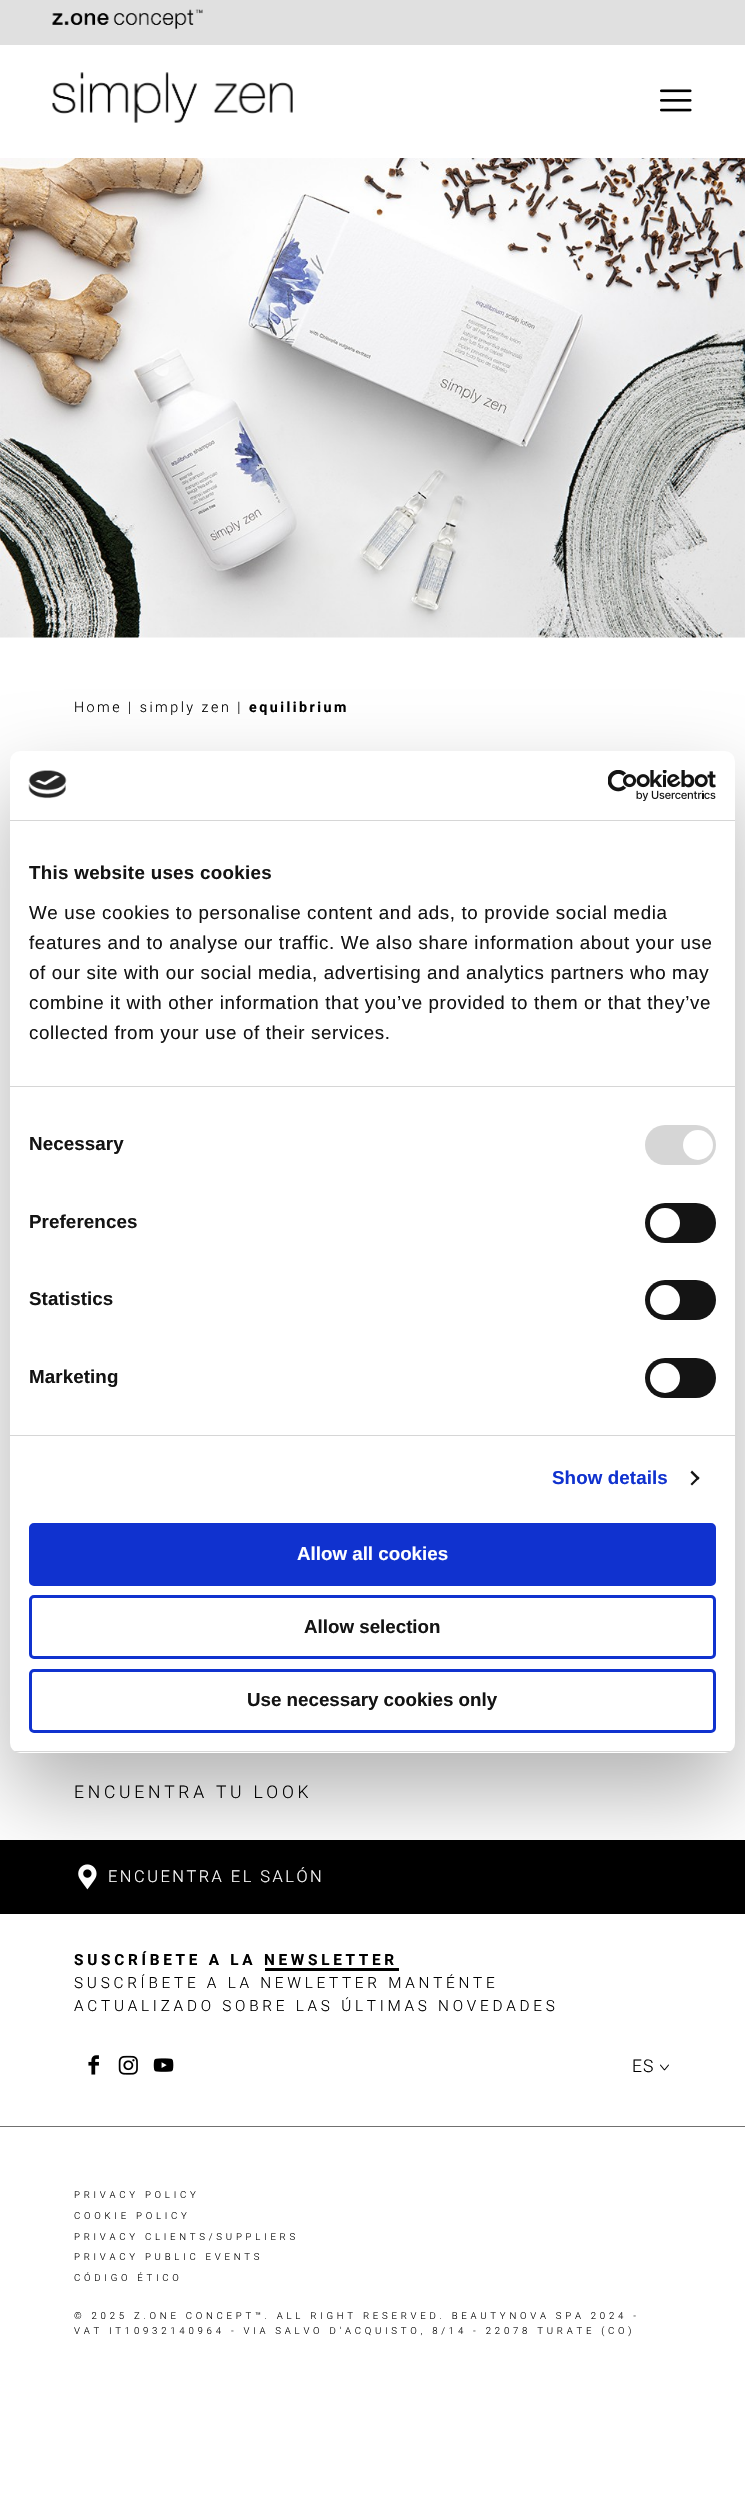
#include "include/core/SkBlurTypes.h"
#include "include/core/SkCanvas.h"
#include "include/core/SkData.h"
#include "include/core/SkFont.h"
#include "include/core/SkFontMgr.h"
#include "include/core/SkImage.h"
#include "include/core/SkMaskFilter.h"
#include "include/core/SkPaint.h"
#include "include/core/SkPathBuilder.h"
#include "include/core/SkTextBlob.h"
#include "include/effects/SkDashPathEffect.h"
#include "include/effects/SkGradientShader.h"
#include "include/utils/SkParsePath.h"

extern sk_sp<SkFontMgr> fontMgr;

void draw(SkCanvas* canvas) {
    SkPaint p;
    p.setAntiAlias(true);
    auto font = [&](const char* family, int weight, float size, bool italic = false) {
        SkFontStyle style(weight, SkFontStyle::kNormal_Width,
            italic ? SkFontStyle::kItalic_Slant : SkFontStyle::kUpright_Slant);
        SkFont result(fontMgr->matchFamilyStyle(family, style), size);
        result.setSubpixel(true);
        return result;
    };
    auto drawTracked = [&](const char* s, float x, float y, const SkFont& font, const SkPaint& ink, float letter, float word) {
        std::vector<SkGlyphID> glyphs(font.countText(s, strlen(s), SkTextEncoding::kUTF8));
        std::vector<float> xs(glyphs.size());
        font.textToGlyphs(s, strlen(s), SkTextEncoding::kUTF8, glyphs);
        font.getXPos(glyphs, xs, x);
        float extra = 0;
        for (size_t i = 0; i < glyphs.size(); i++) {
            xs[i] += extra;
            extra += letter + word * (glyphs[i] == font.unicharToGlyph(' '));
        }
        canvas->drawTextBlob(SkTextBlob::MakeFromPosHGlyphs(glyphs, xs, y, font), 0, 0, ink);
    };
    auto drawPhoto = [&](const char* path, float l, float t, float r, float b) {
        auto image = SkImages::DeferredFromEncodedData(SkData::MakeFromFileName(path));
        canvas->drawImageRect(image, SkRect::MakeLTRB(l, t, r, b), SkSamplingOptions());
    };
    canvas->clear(0xFFFFFFFF);
    p.setColor(0xFFE0E0E0);
    canvas->drawRect(SkRect::MakeLTRB(0, 0, 745, 45), p);
    drawPhoto("media/1.png", 52, 9, 203, 29);
    drawPhoto("media/2.png", 52, 72, 293, 123);
    drawPhoto("media/3.png", 660, 89, 692, 112);
    drawPhoto("media/4.png", 0, 158, 745, 638);
    auto font1 = font("Roboto", 300, 14.25f);
    p.setColor(0xFF000000);
    drawTracked("Home | simply zen |", 74, 712, font1, p, 2.5f, 0);
    auto font2 = font("Roboto", 700, 14.25f);
    drawTracked("equilibrium", 249, 712, font2, p, 2.5f, 0);
    auto font3 = font("Roboto", 300, 17.5f);
    drawTracked("ENCUENTRA TU LOOK", 74, 1798, font3, p, 3.75f, 0);
    canvas->drawRect(SkRect::MakeLTRB(0, 1840, 745, 1914), p);
    drawPhoto("media/5.png", 78, 1864, 97, 1890);
    auto font4 = font("Roboto", 300, 16.4f);
    p.setColor(0xFFFFFFFF);
    drawTracked("ENCUENTRA EL SALÓN", 108, 1882, font4, p, 2.5f, 0);
    auto font5 = font("Roboto", 700, 15.3f);
    p.setColor(0xFF000000);
    drawTracked("SUSCRÍBETE A LA NEWSLETTER", 74, 1965, font5, p, 3.75f, 0);
    canvas->drawRect(SkRect::MakeLTRB(265, 1968, 399, 1971), p);
    auto font6 = font("Roboto", 300, 15.3f);
    drawTracked("SUSCRÍBETE A LA NEWLETTER MANTÉNTE", 74, 1988, font6, p, 3.75f, 0);
    drawTracked("ACTUALIZADO SOBRE LAS ÚLTIMAS NOVEDADES", 74, 2011, font6, p, 3.75f, 0);
    drawPhoto("media/6.png", 88, 2055, 99, 2075);
    drawPhoto("media/7.png", 118, 2055, 138, 2075);
    drawPhoto("media/8.png", 153, 2058, 174, 2072);
    drawTracked("ES", 632, 2072, font3, p, 1, 0);
    drawPhoto("media/9.png", 660, 2064, 669, 2071);
    p.setColor(0xFF707070);
    canvas->drawRect(SkRect::MakeLTRB(0, 2126, 745, 2127), p);
    auto font7 = font("Roboto", 300, 9.62f);
    p.setColor(0xFF000000);
    {
        const struct { const char* s; float x, y; } items[] = {
            {"PRIVACY POLICY", 74, 2198},
            {"COOKIE POLICY", 74, 2219},
            {"PRIVACY CLIENTS/SUPPLIERS", 74, 2240},
            {"PRIVACY PUBLIC EVENTS", 74, 2260},
            {"CÓDIGO ÉTICO", 74, 2281},
            {"© 2025 Z.ONE CONCEPT™. ALL RIGHT RESERVED. BEAUTYNOVA SPA 2024 -", 74, 2319},
            {"VAT IT10932140964 - VIA SALVO D'ACQUISTO, 8/14 - 22078 TURATE (CO)", 74, 2334},
        };
        for (auto [s, x, y] : items) {
            drawTracked(s, x, y, font7, p, 3.75f, 0);
        }
    }
    p.setColor(0x4D000000);
    p.setMaskFilter(SkMaskFilter::MakeBlur(kNormal_SkBlurStyle, 42.5f));
    canvas->drawRoundRect(SkRect::MakeLTRB(10, 791, 735, 1793), 10, 10, p);
    p.setMaskFilter(nullptr);
    p.setColor(0xFFFFFFFF);
    canvas->drawRoundRect(SkRect::MakeLTRB(10, 751, 735, 1753), 10, 10, p);
    p.setColor(0xFFD6D6D6);
    canvas->drawRect(SkRect::MakeLTRB(10, 820, 735, 821), p);
    drawPhoto("media/10.png", 28, 770, 67, 799);
    drawPhoto("media/11.png", 608, 770, 716, 801);
    canvas->drawRect(SkRect::MakeLTRB(10, 1086, 735, 1087), p);
    auto font8 = font("Liberation Sans", 700, 18.75f);
    p.setColor(0xFF141414);
    drawTracked("This website uses cookies", 29, 879, font8, p, 0.3f, 0);
    auto font9 = font("Liberation Sans", 400, 18.75f);
    {
        const struct { const char* s; float x, y; } items[] = {
            {"We use cookies to personalise content and ads, to provide social media", 29, 919},
            {"features and to analyse our traffic. We also share information about your use", 29, 949},
            {"of our site with our social media, advertising and analytics partners who may", 29, 979},
            {"combine it with other information that you’ve provided to them or that they’ve", 29, 1009},
            {"collected from your use of their services.", 29, 1039},
        };
        for (auto [s, x, y] : items) {
            drawTracked(s, x, y, font9, p, 0.62f, 0);
        }
    }
    p.setColor(0xFFD6D6D6);
    canvas->drawRect(SkRect::MakeLTRB(10, 1435, 735, 1436), p);
    p.setColor(0xFF141414);
    drawTracked("Necessary", 29, 1150, font8, p, 0.1f, 0);
    p.setColor(0xFFD6D6D6);
    canvas->drawRoundRect(SkRect::MakeLTRB(645, 1125, 716, 1165), 20, 20, p);
    p.setColor(0xFFFFFFFF);
    canvas->drawCircle(698, 1145, 15, p);
    p.setColor(0xFF141414);
    drawTracked("Preferences", 29, 1228, font8, p, 0.1f, 0);
    canvas->drawRoundRect(SkRect::MakeLTRB(645, 1203, 716, 1243), 20, 20, p);
    p.setColor(0xFFFFFFFF);
    canvas->drawCircle(665, 1223, 15, p);
    p.setColor(0xFF141414);
    drawTracked("Statistics", 29, 1305, font8, p, 0.1f, 0);
    canvas->drawRoundRect(SkRect::MakeLTRB(645, 1280, 716, 1320), 20, 20, p);
    p.setColor(0xFFFFFFFF);
    canvas->drawCircle(665, 1300, 15, p);
    p.setColor(0xFF141414);
    drawTracked("Marketing", 29, 1383, font8, p, 0.1f, 0);
    canvas->drawRoundRect(SkRect::MakeLTRB(645, 1358, 716, 1398), 20, 20, p);
    p.setColor(0xFFFFFFFF);
    canvas->drawCircle(665, 1378, 15, p);
    p.setColor(0xFF1032CF);
    drawTracked("Show details", 552, 1484, font8, p, 0.1f, 0);
    p.setColor(0xFF141414);
    canvas->drawPath(SkPathBuilder().moveTo(692, 1470.5f).lineTo(699.5f, 1478).lineTo(698, 1480).lineTo(690.5f, 1472.5f).close().detach(), p);
    canvas->drawPath(SkPathBuilder().moveTo(698, 1476.5f).lineTo(699.5f, 1478).lineTo(692, 1485.5f).lineTo(690.5f, 1484).close().detach(), p);
    canvas->save();
    canvas->clipPath(SkPathBuilder().moveTo(20, 751).lineTo(725, 751).cubicTo(730.5f, 751, 735, 755.5f, 735, 761).lineTo(735, 1743).cubicTo(735, 1748.5f, 730.5f, 1753, 725, 1753).lineTo(20, 1753).cubicTo(14.5f, 1753, 10, 1748.5f, 10, 1743).lineTo(10, 761).cubicTo(10, 755.5f, 14.5f, 751, 20, 751).close().detach(), true);
    p.setColor(0xFFD6D6D6);
    canvas->drawRect(SkRect::MakeLTRB(10, 1751, 735, 1752), p);
    canvas->restore();
    p.setColor(0xFF1032CF);
    canvas->drawRoundRect(SkRect::MakeLTRB(30.5f, 1524.5f, 714.5f, 1584.5f), 3.5f, 3.5f, p);
    p.setStyle(SkPaint::kStroke_Style);
    p.setStrokeWidth(3);
    canvas->drawRoundRect(SkRect::MakeLTRB(30.5f, 1524.5f, 714.5f, 1584.5f), 3.5f, 3.5f, p);
    p.setStyle(SkPaint::kFill_Style);
    p.setColor(0xFFFFFFFF);
    canvas->drawString("Allow all cookies", 297, 1560, font8, p);
    p.setStyle(SkPaint::kStroke_Style);
    p.setColor(0xFF1032CF);
    canvas->drawRoundRect(SkRect::MakeLTRB(30.5f, 1596.5f, 714.5f, 1657.5f), 3.5f, 3.5f, p);
    p.setStyle(SkPaint::kFill_Style);
    p.setColor(0xFF141414);
    canvas->drawString("Allow selection", 304, 1633, font8, p);
    p.setStyle(SkPaint::kStroke_Style);
    p.setColor(0xFF1032CF);
    canvas->drawRoundRect(SkRect::MakeLTRB(30.5f, 1670.5f, 714.5f, 1731.5f), 3.5f, 3.5f, p);
    p.setStyle(SkPaint::kFill_Style);
    p.setColor(0xFF141414);
    canvas->drawString("Use necessary cookies only", 247, 1706, font8, p);
}
